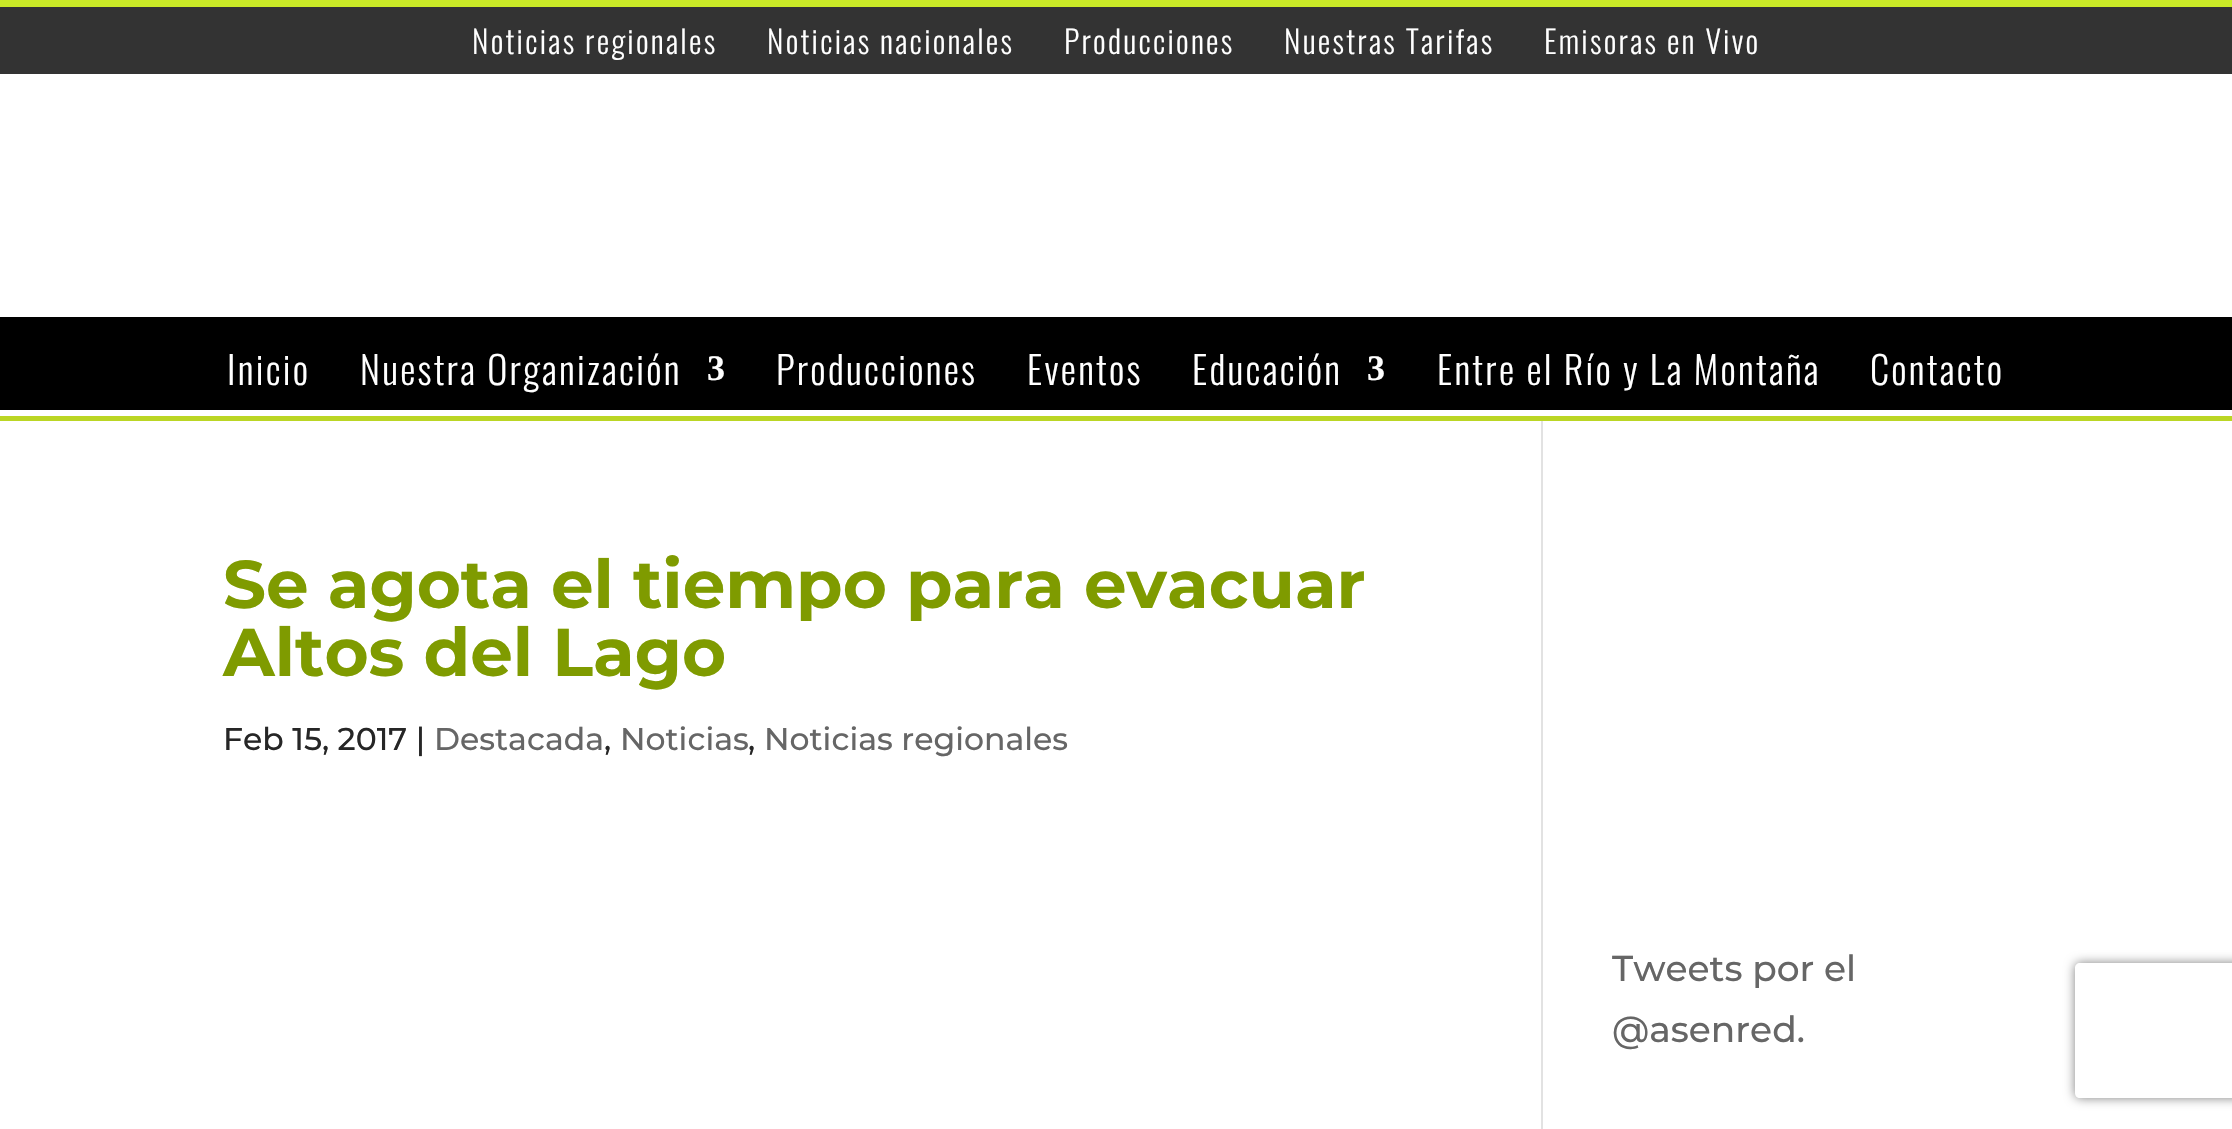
#include "include/core/SkBlurTypes.h"
#include "include/core/SkCanvas.h"
#include "include/core/SkData.h"
#include "include/core/SkFont.h"
#include "include/core/SkFontMgr.h"
#include "include/core/SkImage.h"
#include "include/core/SkMaskFilter.h"
#include "include/core/SkPaint.h"
#include "include/core/SkPathBuilder.h"
#include "include/core/SkTextBlob.h"
#include "include/effects/SkDashPathEffect.h"
#include "include/effects/SkGradientShader.h"
#include "include/utils/SkParsePath.h"

extern sk_sp<SkFontMgr> fontMgr;

void draw(SkCanvas* canvas) {
    SkPaint p;
    p.setAntiAlias(true);
    auto font = [&](const char* family, int weight, float size, bool italic = false) {
        SkFontStyle style(weight, SkFontStyle::kNormal_Width,
            italic ? SkFontStyle::kItalic_Slant : SkFontStyle::kUpright_Slant);
        SkFont result(fontMgr->matchFamilyStyle(family, style), size);
        result.setSubpixel(true);
        return result;
    };
    auto drawTracked = [&](const char* s, float x, float y, const SkFont& font, const SkPaint& ink, float letter, float word) {
        std::vector<SkGlyphID> glyphs(font.countText(s, strlen(s), SkTextEncoding::kUTF8));
        std::vector<float> xs(glyphs.size());
        font.textToGlyphs(s, strlen(s), SkTextEncoding::kUTF8, glyphs);
        font.getXPos(glyphs, xs, x);
        float extra = 0;
        for (size_t i = 0; i < glyphs.size(); i++) {
            xs[i] += extra;
            extra += letter + word * (glyphs[i] == font.unicharToGlyph(' '));
        }
        canvas->drawTextBlob(SkTextBlob::MakeFromPosHGlyphs(glyphs, xs, y, font), 0, 0, ink);
    };
    canvas->clear(0xFFFFFFFF);
    {
        const struct { float l, t, r, b; SkColor color; } items[] = {
            {0, 416, 2232, 421, 0xFFBBD624},
            {0, 0, 2232, 7, 0xFFCAEA27},
            {0, 7, 2232, 74, 0xFF333333},
        };
        for (auto [l, t, r, b, color] : items) {
            p.setColor(color);
            canvas->drawRect(SkRect::MakeLTRB(l, t, r, b), p);
        }
    }
    auto font1 = font("Oswald", 300, 31.5f);
    p.setColor(0xFFFFFFFF);
    {
        const struct { const char* s; float x, y; } items[] = {
            {"Noticias regionales", 472, 54},
            {"Noticias nacionales", 767, 54},
            {"Producciones", 1064, 54},
            {"Nuestras Tarifas", 1284, 54},
            {"Emisoras en Vivo", 1544, 54},
        };
        for (auto [s, x, y] : items) {
            drawTracked(s, x, y, font1, p, 2.25f, 0);
        }
    }
    p.setColor(0xFF000000);
    canvas->drawRect(SkRect::MakeLTRB(0, 317, 2232, 410), p);
    auto font2 = font("Oswald", 300, 38.25f);
    p.setColor(0xFFFFFFFF);
    drawTracked("Inicio", 227, 385, font2, p, 2.25f, 0);
    drawTracked("Nuestra Organización", 360, 385, font2, p, 2.25f, 0);
    auto font3 = font("Liberation Serif", 700, 36);
    drawTracked("3", 707, 380, font3, p, 2.25f, 0);
    {
        const struct { const char* s; float x, y; } items[] = {
            {"Producciones", 776, 385},
            {"Eventos", 1027, 385},
            {"Educación", 1192, 385},
        };
        for (auto [s, x, y] : items) {
            drawTracked(s, x, y, font2, p, 2.25f, 0);
        }
    }
    drawTracked("3", 1367, 380, font3, p, 2.25f, 0);
    drawTracked("Entre el Río y La Montaña", 1437, 385, font2, p, 2.25f, 0);
    drawTracked("Contacto", 1870, 385, font2, p, 2.25f, 0);
    p.setColor(0xFFE2E2E2);
    canvas->drawRect(SkRect::MakeLTRB(1541, 421, 1543, 1129), p);
    auto font4 = font("Montserrat", 100, 67.5f);
    p.setColor(0xFF7F9B00);
    canvas->drawString("Se agota el tiempo para evacuar", 223, 608, font4, p);
    canvas->drawString("Altos del Lago", 223, 676, font4, p);
    auto font5 = font("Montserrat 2", 100, 31.5f);
    p.setColor(0xFF262626);
    canvas->drawString("Feb 15, 2017 |", 223, 750, font5, p);
    p.setColor(0xFF666666);
    canvas->drawString("Destacada", 434, 750, font5, p);
    p.setColor(0xFF262626);
    canvas->drawString(",", 604, 750, font5, p);
    p.setColor(0xFF666666);
    canvas->drawString("Noticias", 620, 750, font5, p);
    p.setColor(0xFF262626);
    canvas->drawString(",", 748, 750, font5, p);
    p.setColor(0xFF666666);
    canvas->drawString("Noticias regionales", 764, 750, font5, p);
    auto font6 = font("Montserrat 2", 100, 36);
    canvas->drawString("Tweets por el", 1612, 981, font6, p);
    canvas->drawString("@asenred.", 1612, 1042, font6, p);
    canvas->save();
    canvas->clipPath(SkPathBuilder(SkPathFillType::kEvenOdd).moveTo(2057, 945).lineTo(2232, 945).lineTo(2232, 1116).lineTo(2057, 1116).close().moveTo(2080, 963).lineTo(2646, 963).cubicTo(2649, 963, 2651, 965, 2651, 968).lineTo(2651, 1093).cubicTo(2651, 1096, 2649, 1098, 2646, 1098).lineTo(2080, 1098).cubicTo(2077, 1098, 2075, 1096, 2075, 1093).lineTo(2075, 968).cubicTo(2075, 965, 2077, 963, 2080, 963).close().detach(), true);
    p.setColor(0xFF808080);
    p.setMaskFilter(SkMaskFilter::MakeBlur(kNormal_SkBlurStyle, 5.5f));
    canvas->drawRoundRect(SkRect::MakeLTRB(2075, 963, 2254, 1098), 5, 5, p);
    p.setMaskFilter(nullptr);
    canvas->restore();
}
